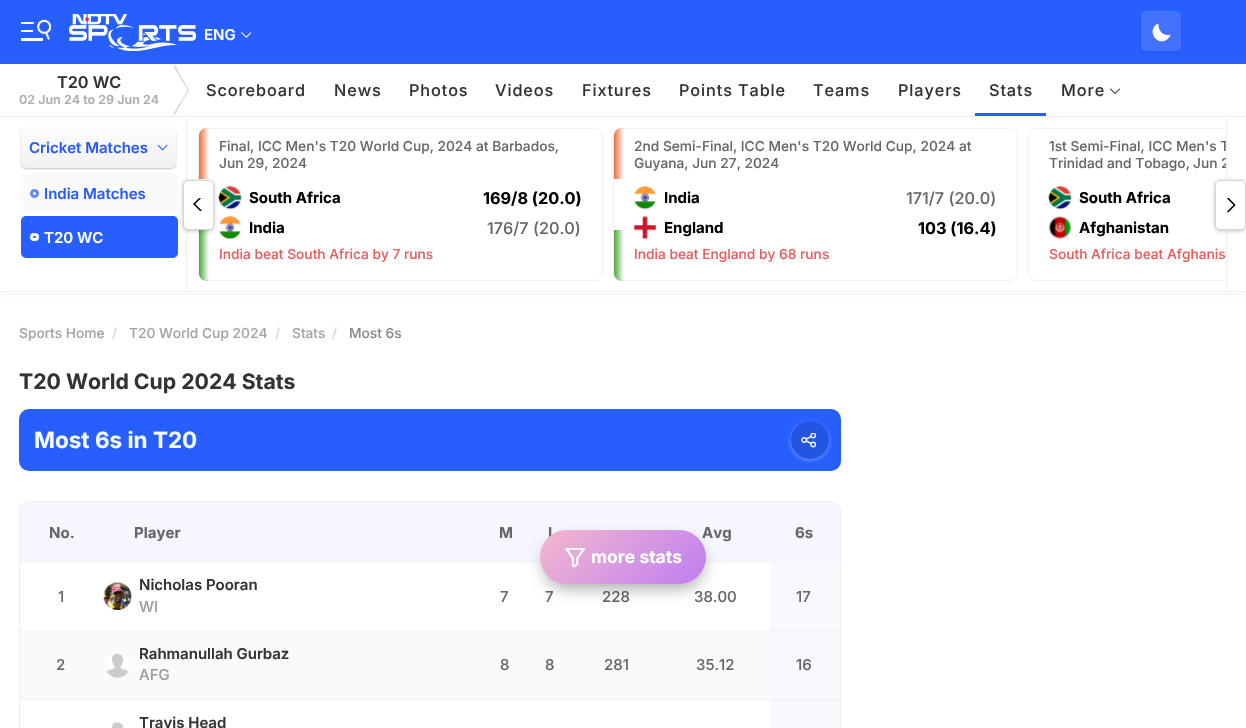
#include "include/core/SkBlurTypes.h"
#include "include/core/SkCanvas.h"
#include "include/core/SkData.h"
#include "include/core/SkFont.h"
#include "include/core/SkFontMgr.h"
#include "include/core/SkImage.h"
#include "include/core/SkMaskFilter.h"
#include "include/core/SkPaint.h"
#include "include/core/SkPathBuilder.h"
#include "include/core/SkTextBlob.h"
#include "include/effects/SkDashPathEffect.h"
#include "include/effects/SkGradientShader.h"
#include "include/utils/SkParsePath.h"

extern sk_sp<SkFontMgr> fontMgr;

void draw(SkCanvas* canvas) {
    SkPaint p;
    p.setAntiAlias(true);
    auto font = [&](const char* family, int weight, float size, bool italic = false) {
        SkFontStyle style(weight, SkFontStyle::kNormal_Width,
            italic ? SkFontStyle::kItalic_Slant : SkFontStyle::kUpright_Slant);
        SkFont result(fontMgr->matchFamilyStyle(family, style), size);
        result.setSubpixel(true);
        return result;
    };
    auto drawTracked = [&](const char* s, float x, float y, const SkFont& font, const SkPaint& ink, float letter, float word) {
        std::vector<SkGlyphID> glyphs(font.countText(s, strlen(s), SkTextEncoding::kUTF8));
        std::vector<float> xs(glyphs.size());
        font.textToGlyphs(s, strlen(s), SkTextEncoding::kUTF8, glyphs);
        font.getXPos(glyphs, xs, x);
        float extra = 0;
        for (size_t i = 0; i < glyphs.size(); i++) {
            xs[i] += extra;
            extra += letter + word * (glyphs[i] == font.unicharToGlyph(' '));
        }
        canvas->drawTextBlob(SkTextBlob::MakeFromPosHGlyphs(glyphs, xs, y, font), 0, 0, ink);
    };
    auto drawPhoto = [&](const char* path, float l, float t, float r, float b) {
        auto image = SkImages::DeferredFromEncodedData(SkData::MakeFromFileName(path));
        canvas->drawImageRect(image, SkRect::MakeLTRB(l, t, r, b), SkSamplingOptions());
    };
    canvas->clear(0xFFFFFFFF);
    p.setColor(0xFF275EFE);
    canvas->drawRect(SkRect::MakeLTRB(0, 0, 1246, 63), p);
    p.setColor(0xFF285BF0);
    canvas->drawRect(SkRect::MakeLTRB(0, 63, 1246, 64), p);
    drawPhoto("media/1.png", 21, 19, 51, 41);
    drawPhoto("media/2.png", 69, 14, 196, 51);
    auto font1 = font("Inter", 600, 15);
    p.setColor(0xFFFFFFFF);
    canvas->drawString("ENG", 204, 40, font1, p);
    drawPhoto("media/3.png", 241, 32, 251, 38);
    canvas->save();
    canvas->clipPath(SkPathBuilder(SkPathFillType::kEvenOdd).moveTo(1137, 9).lineTo(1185, 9).lineTo(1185, 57).lineTo(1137, 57).close().moveTo(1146, 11).lineTo(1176, 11).cubicTo(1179, 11, 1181, 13, 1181, 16).lineTo(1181, 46).cubicTo(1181, 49, 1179, 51, 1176, 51).lineTo(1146, 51).cubicTo(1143, 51, 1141, 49, 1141, 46).lineTo(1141, 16).cubicTo(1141, 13, 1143, 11, 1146, 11).close().detach(), true);
    p.setColor(0x0D000000);
    p.setMaskFilter(SkMaskFilter::MakeBlur(kNormal_SkBlurStyle, 1));
    canvas->drawRoundRect(SkRect::MakeLTRB(1141, 13, 1181, 53), 5, 5, p);
    p.setMaskFilter(nullptr);
    canvas->restore();
    p.setColor(0x21FFFFFF);
    canvas->drawRoundRect(SkRect::MakeLTRB(1141, 11, 1181, 51), 5, 5, p);
    p.setColor(0xFFFFFFFF);
    canvas->drawPath(SkPathBuilder().moveTo(1170.5f, 34.5f).cubicTo(1164, 37, 1157.5f, 30.5f, 1158.5f, 23.5f).cubicTo(1146.5f, 28, 1155, 46.5f, 1166.5f, 40).cubicTo(1168.5f, 38.5f, 1170, 36.5f, 1170.5f, 34.5f).close().detach(), p);
    p.setColor(0x0D000000);
    p.setMaskFilter(SkMaskFilter::MakeBlur(kNormal_SkBlurStyle, 2.5f));
    canvas->drawRect(SkRect::MakeLTRB(0, 119, 1246, 294), p);
    p.setMaskFilter(nullptr);
    p.setColor(0xFFFFFFFF);
    canvas->drawRect(SkRect::MakeLTRB(2, 117, 1244, 118), p);
    p.setColor(0xFFEEEEEE);
    canvas->drawRect(SkRect::MakeLTRB(0, 116, 1246, 117), p);
    auto font2 = font("Inter", 600, 16.25f);
    p.setColor(0xFF333333);
    canvas->drawString("T20 WC", 57, 88, font2, p);
    auto font3 = font("Inter", 600, 12.5f);
    p.setColor(0xFFADADAD);
    canvas->drawString("02 Jun 24 to 29 Jun 24", 19, 104, font3, p);
    p.setColor(0xFFD4D4D4);
    canvas->drawPath(SkPathBuilder().moveTo(174, 116).lineTo(174, 64).lineTo(189, 90).close().detach(), p);
    p.setColor(0xFFFFFFFF);
    canvas->drawPath(SkPathBuilder().moveTo(172, 116).lineTo(172, 64).lineTo(188, 90).close().detach(), p);
    auto font4 = font("Inter", 500, 16.25f);
    p.setColor(0xFF333333);
    {
        const struct { const char* s; float x, y; } items[] = {
            {"Scoreboard", 206, 96},
            {"News", 334, 96},
            {"Photos", 409, 96},
            {"Videos", 495, 96},
            {"Fixtures", 582, 96},
            {"Points Table", 679, 96},
            {"Teams", 813, 96},
            {"Players", 898, 96},
            {"Stats", 989, 96},
        };
        for (auto [s, x, y] : items) {
            drawTracked(s, x, y, font4, p, 0.9f, 0);
        }
    }
    p.setColor(0xFF275EFE);
    canvas->drawRect(SkRect::MakeLTRB(975, 113, 1046, 116), p);
    p.setColor(0xFF333333);
    drawTracked("More", 1061, 96, font4, p, 0.9f, 0);
    drawPhoto("media/4.png", 1110, 88, 1120, 94);
    {
        const struct { float l, t, r, b; SkColor color; } items[] = {
            {0, 118, 1246, 293, 0xFFFFFFFF},
            {0, 291, 1246, 292, 0xFFF1F1F1},
            {1226, 118, 1227, 291, 0xFFF1F1F1},
            {186, 118, 187, 291, 0xFFF0F0F0},
        };
        for (auto [l, t, r, b, color] : items) {
            p.setColor(color);
            canvas->drawRect(SkRect::MakeLTRB(l, t, r, b), p);
        }
    }
    p.setColor(0x3B000000);
    p.setMaskFilter(SkMaskFilter::MakeBlur(kNormal_SkBlurStyle, 1));
    canvas->drawRoundRect(SkRect::MakeLTRB(21, 129, 176, 169), 5, 5, p);
    p.setMaskFilter(nullptr);
    {
        const SkColor colors[] = {0xFFF1F1F1, 0xFFFDFDFD};
        const float stops[] = {0, 1};
        const SkPoint ends[] = {{99, 168}, {99, 128}};
        p.setShader(SkGradientShader::MakeLinear(ends, colors, stops, 2, SkTileMode::kClamp));
        p.setAlpha(255);
    }
    canvas->drawRoundRect(SkRect::MakeLTRB(21, 128, 176, 168), 5, 5, p);
    p.setShader(nullptr);
    p.setColor(0xFF295CF6);
    canvas->drawString("Cricket Matches", 29, 153, font1, p);
    drawPhoto("media/5.png", 158, 144, 168, 151);
    p.setColor(0xFFFAFAFA);
    canvas->drawRoundRect(SkRect::MakeLTRB(21, 173, 178, 214), 5, 5, p);
    p.setStyle(SkPaint::kStroke_Style);
    p.setStrokeWidth(3);
    p.setColor(0xFF688BF7);
    canvas->drawCircle(34.5f, 193.5f, 3, p);
    p.setStyle(SkPaint::kFill_Style);
    p.setColor(0xFF295CF6);
    canvas->drawString("India Matches", 44, 199, font1, p);
    p.setColor(0xFF275EFE);
    canvas->drawRoundRect(SkRect::MakeLTRB(21, 216, 178, 258), 5, 5, p);
    p.setStyle(SkPaint::kStroke_Style);
    p.setColor(0xFFFFFFFF);
    canvas->drawRoundRect(SkRect::MakeLTRB(31.5f, 234.5f, 37.5f, 239.5f), 2.5f, 2.5f, p);
    p.setStyle(SkPaint::kFill_Style);
    canvas->drawString("T20 WC", 44, 243, font1, p);
    p.setStyle(SkPaint::kStroke_Style);
    p.setStrokeWidth(1);
    p.setColor(0xFFF1F1F1);
    canvas->drawRoundRect(SkRect::MakeLTRB(198.5f, 128.5f, 602.5f, 280.5f), 7.5f, 7.5f, p);
    canvas->save();
    canvas->clipPath(SkPathBuilder().moveTo(207, 128).lineTo(209, 128).lineTo(209, 281).lineTo(207, 281).cubicTo(202.5f, 281, 199, 277.5f, 199, 273).lineTo(199, 136).cubicTo(199, 131.5f, 202.5f, 128, 207, 128).close().detach(), true);
    p.setStyle(SkPaint::kFill_Style);
    {
        const SkColor colors[] = {0xFFEF6D38, 0x00EF6D38};
        const float stops[] = {0, 1};
        const SkPoint ends[] = {{199, 153}, {209, 153}};
        p.setShader(SkGradientShader::MakeLinear(ends, colors, stops, 2, SkTileMode::kClamp));
        p.setAlpha(255);
    }
    canvas->drawRect(SkRect::MakeLTRB(199, 128, 209, 179), p);
    {
        const SkColor colors[] = {0xFF4CA63D, 0x004CA63D};
        const float stops[] = {0, 1};
        const SkPoint ends[] = {{199, 256}, {209, 256}};
        p.setShader(SkGradientShader::MakeLinear(ends, colors, stops, 2, SkTileMode::kClamp));
        p.setAlpha(255);
    }
    canvas->drawRect(SkRect::MakeLTRB(199, 230, 209, 281), p);
    canvas->restore();
    p.setStyle(SkPaint::kStroke_Style);
    p.setShader(nullptr);
    p.setColor(0xFFE5E6E8);
    canvas->drawRoundRect(SkRect::MakeLTRB(219.5f, 186.5f, 240.5f, 208.5f), 10.5f, 10.5f, p);
    drawPhoto("media/7.png", 218, 186, 242, 210);
    canvas->drawRoundRect(SkRect::MakeLTRB(219.5f, 216.5f, 240.5f, 238.5f), 10.5f, 10.5f, p);
    drawPhoto("media/8.png", 219, 216, 241, 240);
    p.setStyle(SkPaint::kFill_Style);
    p.setColor(0x3B000000);
    p.setMaskFilter(SkMaskFilter::MakeBlur(kNormal_SkBlurStyle, 2));
    canvas->drawRoundRect(SkRect::MakeLTRB(183, 181, 214, 231), 5, 5, p);
    p.setMaskFilter(nullptr);
    p.setColor(0xFFFFFFFF);
    canvas->drawRoundRect(SkRect::MakeLTRB(183, 180, 214, 230), 5, 5, p);
    p.setStyle(SkPaint::kStroke_Style);
    p.setColor(0x2B000000);
    canvas->drawRoundRect(SkRect::MakeLTRB(183.5f, 180.5f, 213.5f, 229.5f), 4.5f, 4.5f, p);
    drawPhoto("media/6.png", 193, 198, 202, 211);
    auto font5 = font("Inter", 500, 13.75f);
    p.setStyle(SkPaint::kFill_Style);
    p.setColor(0xFF666666);
    canvas->drawString("Final, ICC Men's T20 World Cup, 2024 at Barbados,", 219, 151, font5, p);
    canvas->drawString("Jun 29, 2024", 219, 168, font5, p);
    auto font6 = font("Inter", 700, 15);
    p.setColor(0xFF000000);
    canvas->drawString("South Africa", 249, 203, font6, p);
    auto font7 = font("Inter", 700, 16.25f);
    canvas->drawString("169/8 (20.0)", 483, 204, font7, p);
    canvas->drawString("India", 249, 233, font6, p);
    p.setColor(0xFF666666);
    canvas->drawString("176/7 (20.0)", 487, 234, font4, p);
    p.setColor(0xFFEA5B5B);
    canvas->drawString("India beat South Africa by 7 runs", 219, 259, font5, p);
    p.setStyle(SkPaint::kStroke_Style);
    p.setColor(0xFFF1F1F1);
    canvas->drawRoundRect(SkRect::MakeLTRB(613.5f, 128.5f, 1017.5f, 280.5f), 7.5f, 7.5f, p);
    canvas->save();
    canvas->clipPath(SkPathBuilder().moveTo(622, 128).lineTo(624, 128).lineTo(624, 281).lineTo(622, 281).cubicTo(617.5f, 281, 614, 277.5f, 614, 273).lineTo(614, 136).cubicTo(614, 131.5f, 617.5f, 128, 622, 128).close().detach(), true);
    p.setStyle(SkPaint::kFill_Style);
    {
        const SkColor colors[] = {0xFFEF6D38, 0x00EF6D38};
        const float stops[] = {0, 1};
        const SkPoint ends[] = {{614, 153}, {624, 153}};
        p.setShader(SkGradientShader::MakeLinear(ends, colors, stops, 2, SkTileMode::kClamp));
        p.setAlpha(255);
    }
    canvas->drawRect(SkRect::MakeLTRB(614, 128, 624, 179), p);
    {
        const SkColor colors[] = {0xFF4CA63D, 0x004CA63D};
        const float stops[] = {0, 1};
        const SkPoint ends[] = {{614, 256}, {624, 256}};
        p.setShader(SkGradientShader::MakeLinear(ends, colors, stops, 2, SkTileMode::kClamp));
        p.setAlpha(255);
    }
    canvas->drawRect(SkRect::MakeLTRB(614, 230, 624, 281), p);
    canvas->restore();
    p.setShader(nullptr);
    p.setColor(0xFF666666);
    canvas->drawString("2nd Semi-Final, ICC Men's T20 World Cup, 2024 at", 634, 151, font5, p);
    canvas->drawString("Guyana, Jun 27, 2024", 634, 168, font5, p);
    p.setStyle(SkPaint::kStroke_Style);
    p.setColor(0xFFE5E6E8);
    canvas->drawRoundRect(SkRect::MakeLTRB(634.5f, 186.5f, 655.5f, 208.5f), 10.5f, 10.5f, p);
    drawPhoto("media/9.png", 634, 186, 656, 210);
    p.setStyle(SkPaint::kFill_Style);
    p.setColor(0xFF000000);
    canvas->drawString("India", 664, 203, font6, p);
    p.setColor(0xFF666666);
    canvas->drawString("171/7 (20.0)", 906, 204, font4, p);
    p.setStyle(SkPaint::kStroke_Style);
    p.setColor(0xFFE5E6E8);
    canvas->drawRoundRect(SkRect::MakeLTRB(634.5f, 216.5f, 655.5f, 238.5f), 10.5f, 10.5f, p);
    drawPhoto("media/10.png", 633, 216, 657, 240);
    p.setStyle(SkPaint::kFill_Style);
    p.setColor(0xFF000000);
    canvas->drawString("England", 664, 233, font6, p);
    canvas->drawString("103 (16.4)", 918, 234, font7, p);
    p.setColor(0xFFEA5B5B);
    canvas->drawString("India beat England by 68 runs", 634, 259, font5, p);
    canvas->save();
    canvas->clipRect(SkRect::MakeLTRB(19, 118, 1226, 291));
    p.setStyle(SkPaint::kStroke_Style);
    p.setColor(0xFFF1F1F1);
    canvas->drawRoundRect(SkRect::MakeLTRB(1028.5f, 128.5f, 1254.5f, 280.5f), 7.5f, 7.5f, p);
    p.setStyle(SkPaint::kFill_Style);
    p.setColor(0xFF666666);
    canvas->drawString("1st Semi-Final, ICC Men's T", 1049, 151, font5, p);
    canvas->restore();
    canvas->drawString("Trinidad and Tobago,", 1049, 168, font5, p);
    canvas->save();
    canvas->clipRect(SkRect::MakeLTRB(19, 118, 1226, 291));
    canvas->drawString("Jun 2", 1193, 168, font5, p);
    canvas->restore();
    p.setStyle(SkPaint::kStroke_Style);
    p.setColor(0xFFE5E6E8);
    canvas->drawRoundRect(SkRect::MakeLTRB(1049.5f, 186.5f, 1070.5f, 208.5f), 10.5f, 10.5f, p);
    drawPhoto("media/7.png", 1048, 186, 1072, 210);
    p.setStyle(SkPaint::kFill_Style);
    p.setColor(0xFF000000);
    canvas->drawString("South Africa", 1079, 203, font6, p);
    p.setStyle(SkPaint::kStroke_Style);
    p.setColor(0xFFE5E6E8);
    canvas->drawRoundRect(SkRect::MakeLTRB(1049.5f, 216.5f, 1070.5f, 238.5f), 10.5f, 10.5f, p);
    drawPhoto("media/11.png", 1048, 216, 1072, 239);
    p.setStyle(SkPaint::kFill_Style);
    p.setColor(0xFF000000);
    canvas->drawString("Afghanistan", 1079, 233, font6, p);
    p.setColor(0xFFEA5B5B);
    canvas->drawString("South Africa beat Afghanis", 1049, 259, font5, p);
    p.setColor(0x3B000000);
    p.setMaskFilter(SkMaskFilter::MakeBlur(kNormal_SkBlurStyle, 2));
    canvas->drawRoundRect(SkRect::MakeLTRB(1215, 181, 1246, 231), 5, 5, p);
    p.setMaskFilter(nullptr);
    p.setColor(0xFFFFFFFF);
    canvas->drawRoundRect(SkRect::MakeLTRB(1215, 180, 1246, 230), 5, 5, p);
    p.setStyle(SkPaint::kStroke_Style);
    p.setColor(0x2B000000);
    canvas->drawRoundRect(SkRect::MakeLTRB(1215.5f, 180.5f, 1245.5f, 229.5f), 4.5f, 4.5f, p);
    drawPhoto("media/12.png", 1227, 198, 1236, 213);
    p.setStyle(SkPaint::kFill_Style);
    p.setColor(0xFFA3A3A3);
    canvas->drawString("Sports Home", 19, 338, font5, p);
    p.setColor(0xFFD6D8D9);
    canvas->drawString("/", 112, 338, font5, p);
    p.setColor(0xFFA3A3A3);
    canvas->drawString("T20 World Cup 2024", 129, 338, font5, p);
    p.setColor(0xFFD6D8D9);
    canvas->drawString("/", 275, 338, font5, p);
    p.setColor(0xFFA3A3A3);
    canvas->drawString("Stats", 292, 338, font5, p);
    p.setColor(0xFFD6D8D9);
    canvas->drawString("/", 332, 338, font5, p);
    p.setColor(0xFF898989);
    canvas->drawString("Most 6s", 349, 338, font5, p);
    auto font8 = font("Inter", 700, 21.25f);
    p.setColor(0xFF333333);
    canvas->drawString("T20 World Cup 2024 Stats", 19, 389, font8, p);
    p.setColor(0xFF275EFE);
    canvas->drawRoundRect(SkRect::MakeLTRB(19, 409, 841, 471), 10, 10, p);
    auto font9 = font("Inter", 700, 22.5f);
    p.setColor(0xFFF5FCFF);
    canvas->drawString("Most 6s in T20", 34, 448, font9, p);
    canvas->save();
    canvas->clipPath(SkPathBuilder(SkPathFillType::kEvenOdd).moveTo(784, 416).lineTo(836, 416).lineTo(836, 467).lineTo(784, 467).close().moveTo(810, 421).cubicTo(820.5f, 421, 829, 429.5f, 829, 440).cubicTo(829, 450.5f, 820.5f, 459, 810, 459).cubicTo(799.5f, 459, 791, 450.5f, 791, 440).cubicTo(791, 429.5f, 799.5f, 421, 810, 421).close().detach(), true);
    p.setColor(0x5EFFFFFF);
    p.setMaskFilter(SkMaskFilter::MakeBlur(kNormal_SkBlurStyle, 2));
    canvas->drawRoundRect(SkRect::MakeLTRB(791, 423, 829, 460), 18.5f, 18.5f, p);
    p.setMaskFilter(nullptr);
    canvas->restore();
    p.setColor(0x1C000000);
    canvas->drawCircle(810, 440, 19, p);
    drawPhoto("media/13.png", 801, 433, 816, 448);
    p.setStyle(SkPaint::kStroke_Style);
    p.setColor(0xFFEFEFEF);
    canvas->drawRoundRect(SkRect::MakeLTRB(19.5f, 501.5f, 840.5f, 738.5f), 9.5f, 9.5f, p);
    p.setStyle(SkPaint::kFill_Style);
    p.setColor(0xFFF6F7FE);
    canvas->drawPath(SkPathBuilder().moveTo(29, 503).lineTo(831, 503).cubicTo(836, 503, 840, 507, 840, 512).lineTo(840, 563).lineTo(20, 563).lineTo(20, 512).cubicTo(20, 507, 24, 503, 29, 503).close().detach(), p);
    p.setColor(0xFF666666);
    {
        const struct { const char* s; float x, y; } items[] = {
            {"No.", 49, 538},
            {"Player", 134, 538},
            {"M", 499, 538},
            {"I", 548, 538},
            {"Avg", 702, 538},
            {"6s", 795, 538},
        };
        for (auto [s, x, y] : items) {
            canvas->drawString(s, x, y, font6, p);
        }
    }
    p.setColor(0xFFF5F5F5);
    canvas->drawRect(SkRect::MakeLTRB(20, 630, 770, 631), p);
    auto font10 = font("Inter", 500, 15);
    p.setColor(0xFF666666);
    canvas->drawString("1", 58, 602, font10, p);
    drawPhoto("media/14.png", 103, 582, 132, 610);
    p.setColor(0xFF333333);
    canvas->drawString("Nicholas Pooran", 139, 590, font1, p);
    p.setColor(0xFF9C9C9C);
    canvas->drawString("WI", 139, 612, font10, p);
    p.setColor(0xFF666666);
    {
        const struct { const char* s; float x, y; } items[] = {
            {"7", 500, 602},
            {"7", 545, 602},
            {"228", 602, 602},
            {"38.00", 694, 602},
        };
        for (auto [s, x, y] : items) {
            canvas->drawString(s, x, y, font10, p);
        }
    }
    p.setColor(0xFFF8F9FF);
    canvas->drawRect(SkRect::MakeLTRB(770, 563, 840, 630), p);
    p.setColor(0xFFEEEFF5);
    canvas->drawRect(SkRect::MakeLTRB(770, 630, 840, 631), p);
    p.setColor(0xFF666666);
    canvas->drawString("17", 796, 602, font10, p);
    p.setColor(0xFFFAFAFA);
    canvas->drawRect(SkRect::MakeLTRB(20, 631, 770, 699), p);
    p.setColor(0xFFF0F0F0);
    canvas->drawRect(SkRect::MakeLTRB(20, 699, 770, 700), p);
    p.setColor(0xFF666666);
    canvas->drawString("2", 56, 670, font10, p);
    drawPhoto("media/15.png", 105, 653, 130, 678);
    p.setColor(0xFF333333);
    canvas->drawString("Rahmanullah Gurbaz", 139, 659, font1, p);
    p.setColor(0xFF9C9C9C);
    canvas->drawString("AFG", 139, 680, font10, p);
    p.setColor(0xFF666666);
    {
        const struct { const char* s; float x, y; } items[] = {
            {"8", 500, 670},
            {"8", 545, 670},
            {"281", 604, 670},
            {"35.12", 696, 670},
        };
        for (auto [s, x, y] : items) {
            canvas->drawString(s, x, y, font10, p);
        }
    }
    p.setColor(0xFFF8F9FF);
    canvas->drawRect(SkRect::MakeLTRB(770, 631, 840, 699), p);
    p.setColor(0xFFEEEFF5);
    canvas->drawRect(SkRect::MakeLTRB(770, 699, 840, 700), p);
    p.setColor(0xFF666666);
    canvas->drawString("16", 796, 670, font10, p);
    drawPhoto("media/16.png", 112, 722, 123, 728);
    p.setColor(0xFF333333);
    canvas->drawString("Travis Head", 139, 728, font1, p);
    p.setColor(0xFFF8F9FF);
    canvas->drawRect(SkRect::MakeLTRB(770, 700, 840, 728), p);
    p.setColor(0x4F000000);
    p.setMaskFilter(SkMaskFilter::MakeBlur(kNormal_SkBlurStyle, 7.5f));
    canvas->drawRoundRect(SkRect::MakeLTRB(543, 540, 704, 589), 24.5f, 24.5f, p);
    p.setMaskFilter(nullptr);
    {
        const SkColor colors[] = {0xFFBD7EF2, 0xFFF4B7CE};
        const float stops[] = {0, 1};
        const SkPoint ends[] = {{678, 612}, {568, 502}};
        p.setShader(SkGradientShader::MakeLinear(ends, colors, stops, 2, SkTileMode::kClamp));
        p.setAlpha(255);
    }
    canvas->drawRoundRect(SkRect::MakeLTRB(540, 530, 706, 584), 27, 27, p);
    drawPhoto("media/17.png", 565, 548, 585, 568);
    auto font11 = font("Inter", 700, 17.5f);
    p.setShader(nullptr);
    p.setColor(0xFFFFFFFF);
    canvas->drawString("more stats", 591, 563, font11, p);
}
